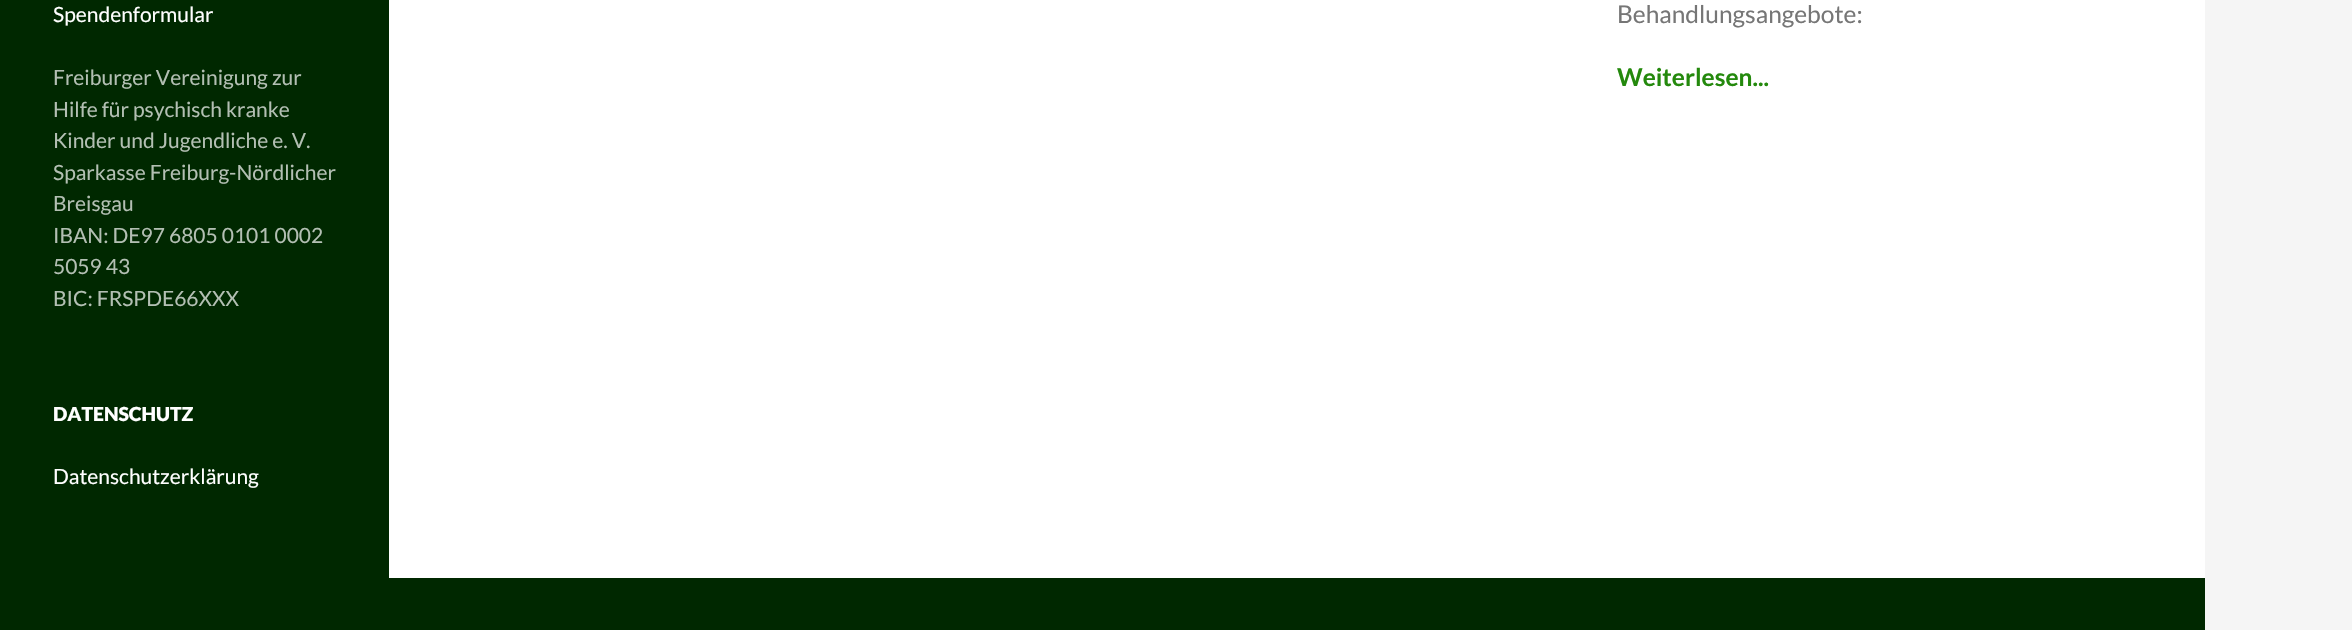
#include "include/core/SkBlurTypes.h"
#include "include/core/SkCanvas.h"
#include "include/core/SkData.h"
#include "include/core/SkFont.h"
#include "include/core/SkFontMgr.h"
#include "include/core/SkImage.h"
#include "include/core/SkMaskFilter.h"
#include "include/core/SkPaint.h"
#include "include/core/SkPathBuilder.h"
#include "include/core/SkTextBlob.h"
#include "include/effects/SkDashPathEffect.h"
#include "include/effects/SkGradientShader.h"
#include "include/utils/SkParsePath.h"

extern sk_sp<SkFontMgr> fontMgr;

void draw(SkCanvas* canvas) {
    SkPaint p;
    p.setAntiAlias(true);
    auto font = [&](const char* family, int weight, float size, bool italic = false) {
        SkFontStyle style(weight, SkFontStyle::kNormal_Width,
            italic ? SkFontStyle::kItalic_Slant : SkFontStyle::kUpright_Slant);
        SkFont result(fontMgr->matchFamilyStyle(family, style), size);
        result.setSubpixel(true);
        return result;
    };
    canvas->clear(0xFFF5F5F5);
    p.setColor(0xFFFFFFFF);
    canvas->drawRect(SkRect::MakeLTRB(389, 0, 2205, 578), p);
    p.setColor(0xFF002800);
    canvas->drawRect(SkRect::MakeLTRB(0, 0, 389, 578), p);
    auto font1 = font("Lato", 400, 21);
    p.setColor(0xFFFFFFFF);
    canvas->drawString("Spendenformular", 53, 22, font1, p);
    p.setColor(0xFFB3BFB3);
    {
        const struct { const char* s; float x, y; } items[] = {
            {"Freiburger Vereinigung zur", 53, 85},
            {"Hilfe für psychisch kranke", 53, 117},
            {"Kinder und Jugendliche e. V.", 53, 148},
            {"Sparkasse Freiburg-Nördlicher", 53, 180},
            {"Breisgau", 53, 211},
            {"IBAN: DE97 6805 0101 0002", 53, 243},
            {"5059 43", 53, 274},
            {"BIC: FRSPDE66XXX", 53, 306},
        };
        for (auto [s, x, y] : items) {
            canvas->drawString(s, x, y, font1, p);
        }
    }
    auto font2 = font("Lato", 900, 19.25f);
    p.setColor(0xFFFFFFFF);
    canvas->drawString("DATENSCHUTZ", 53, 421, font2, p);
    canvas->drawString("Datenschutzerklärung", 53, 484, font1, p);
    auto font3 = font("Lato", 400, 24.5f);
    p.setColor(0xFF767676);
    canvas->drawString("Behandlungsangebote:", 1617, 23, font3, p);
    auto font4 = font("Lato", 700, 24.5f);
    p.setColor(0xFF24890D);
    canvas->drawString("Weiterlesen...", 1617, 86, font4, p);
    p.setColor(0xFF002800);
    canvas->drawRect(SkRect::MakeLTRB(0, 578, 2205, 630), p);
}
